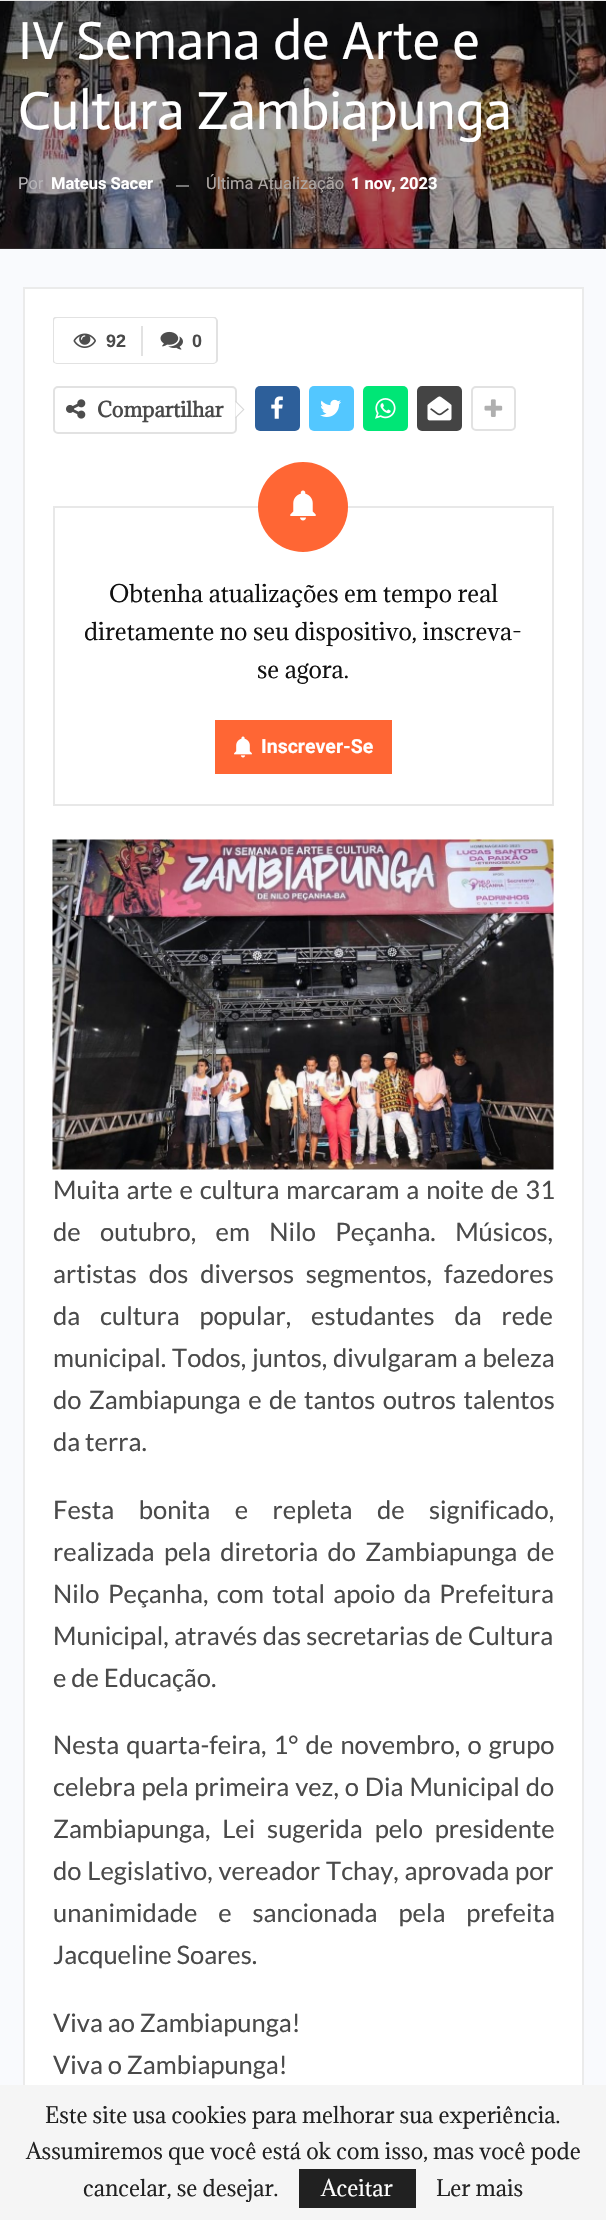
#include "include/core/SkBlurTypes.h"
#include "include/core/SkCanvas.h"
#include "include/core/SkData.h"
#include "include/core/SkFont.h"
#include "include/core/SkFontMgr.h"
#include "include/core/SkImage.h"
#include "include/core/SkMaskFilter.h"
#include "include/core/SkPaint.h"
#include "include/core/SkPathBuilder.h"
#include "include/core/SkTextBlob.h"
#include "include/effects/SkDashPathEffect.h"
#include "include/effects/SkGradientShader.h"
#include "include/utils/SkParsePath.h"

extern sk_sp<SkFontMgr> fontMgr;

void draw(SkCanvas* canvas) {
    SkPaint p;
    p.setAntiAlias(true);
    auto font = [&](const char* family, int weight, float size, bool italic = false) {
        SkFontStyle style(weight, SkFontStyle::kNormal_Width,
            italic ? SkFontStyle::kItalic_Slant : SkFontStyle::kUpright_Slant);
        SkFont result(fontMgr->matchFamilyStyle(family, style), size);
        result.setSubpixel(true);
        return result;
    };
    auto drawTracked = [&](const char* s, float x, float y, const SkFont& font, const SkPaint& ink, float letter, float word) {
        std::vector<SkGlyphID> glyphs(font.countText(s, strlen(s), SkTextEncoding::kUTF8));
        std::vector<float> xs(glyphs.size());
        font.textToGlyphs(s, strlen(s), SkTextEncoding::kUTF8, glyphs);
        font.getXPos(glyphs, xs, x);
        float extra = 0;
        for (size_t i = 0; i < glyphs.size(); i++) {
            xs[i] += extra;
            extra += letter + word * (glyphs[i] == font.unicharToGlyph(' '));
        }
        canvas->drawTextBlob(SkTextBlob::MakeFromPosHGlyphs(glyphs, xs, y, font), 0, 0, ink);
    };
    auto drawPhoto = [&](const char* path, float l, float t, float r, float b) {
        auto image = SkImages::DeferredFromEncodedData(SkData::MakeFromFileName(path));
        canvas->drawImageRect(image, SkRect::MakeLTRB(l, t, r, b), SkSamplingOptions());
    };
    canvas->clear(0xFFF9FAFD);
    p.setColor(0xFFE5E5E5);
    canvas->drawRect(SkRect::MakeLTRB(0, 0, 606, 1), p);
    p.setColor(0xFF383838);
    canvas->drawRect(SkRect::MakeLTRB(0, 248, 606, 249), p);
    drawPhoto("media/1.png", 0, 1, 606, 249);
    auto font1 = font("Actor", 400, 54);
    p.setColor(0xFFFFFFFF);
    canvas->drawString("IV Semana de Arte e", 18, 59, font1, p);
    canvas->drawString("Cultura Zambiapunga", 18, 129, font1, p);
    auto font2 = font("Roboto", 400, 16.5f);
    p.setColor(0xFFB6B4B7);
    canvas->drawString("Por", 18, 189, font2, p);
    auto font3 = font("Roboto", 700, 16.5f);
    p.setColor(0xFFFFFFFF);
    canvas->drawString("Mateus Sacer", 51, 189, font3, p);
    p.setColor(0x6EFFFFFF);
    canvas->drawRect(SkRect::MakeLTRB(176, 185, 189, 187), p);
    p.setColor(0xFFAEA7A4);
    canvas->drawString("Última Atualização", 206, 189, font2, p);
    p.setColor(0xFFFFFFFF);
    canvas->drawString("1 nov, 2023", 351, 189, font3, p);
    canvas->drawRect(SkRect::MakeLTRB(25, 289, 582, 2085), p);
    p.setStyle(SkPaint::kStroke_Style);
    p.setStrokeWidth(2);
    p.setColor(0xFFEBEBEB);
    canvas->drawRect(SkRect::MakeLTRB(24, 288, 583, 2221), p);
    canvas->save();
    canvas->clipRect(SkRect::MakeLTRB(53, 317, 218, 371));
    p.setStyle(SkPaint::kFill_Style);
    p.setColor(0xFFE2E2E2);
    canvas->drawPath(SkPathBuilder(SkPathFillType::kEvenOdd).moveTo(57, 316).lineTo(141, 316).lineTo(141, 364).lineTo(57, 364).cubicTo(55, 364, 52, 362, 52, 360).lineTo(52, 321).cubicTo(52, 319, 55, 316, 57, 316).close().moveTo(57, 318).lineTo(141, 318).lineTo(141, 363).lineTo(57, 363).cubicTo(55, 363, 54, 362, 54, 360).lineTo(54, 321).cubicTo(54, 319, 55, 318, 57, 318).close().detach(), p);
    canvas->restore();
    drawPhoto("media/2.png", 73, 333, 96, 348);
    auto font4 = font("Liberation Sans", 700, 18);
    p.setColor(0xFF4A4A4A);
    canvas->drawString("92", 106, 347, font4, p);
    canvas->save();
    canvas->clipRect(SkRect::MakeLTRB(53, 317, 218, 371));
    p.setColor(0xFFE2E2E2);
    canvas->drawPath(SkPathBuilder(SkPathFillType::kEvenOdd).moveTo(141, 316).lineTo(213, 316).cubicTo(215, 316, 218, 319, 218, 321).lineTo(218, 360).cubicTo(218, 362, 215, 364, 213, 364).lineTo(141, 364).close().moveTo(141, 318).lineTo(213, 318).cubicTo(215, 318, 216, 319, 216, 321).lineTo(216, 360).cubicTo(216, 362, 215, 363, 213, 363).lineTo(141, 363).close().detach(), p);
    canvas->restore();
    canvas->drawRect(SkRect::MakeLTRB(141, 326, 143, 356), p);
    drawPhoto("media/3.png", 160, 331, 183, 350);
    p.setColor(0xFF4A4A4A);
    canvas->drawString("0", 192, 347, font4, p);
    p.setStyle(SkPaint::kStroke_Style);
    p.setColor(0xFFE2E2E2);
    canvas->drawRoundRect(SkRect::MakeLTRB(54, 387, 236, 433), 4, 4, p);
    drawPhoto("media/4.png", 66, 399, 86, 419);
    auto font5 = font("Adamina", 700, 19.5f);
    p.setStyle(SkPaint::kFill_Style);
    p.setColor(0xFF4A4A4A);
    canvas->drawString("Compartilhar", 97, 417, font5, p);
    p.setColor(0xFFD7D7D7);
    canvas->drawPath(SkPathBuilder().moveTo(235.5f, 418.5f).lineTo(235.5f, 400.5f).lineTo(244.5f, 409.5f).close().detach(), p);
    p.setColor(0xFFFFFFFF);
    canvas->drawPath(SkPathBuilder().moveTo(235.5f, 417).lineTo(235.5f, 402).lineTo(243, 409.5f).close().detach(), p);
    p.setColor(0xFF2D5F9A);
    canvas->drawRoundRect(SkRect::MakeLTRB(255, 386, 300, 431), 5, 5, p);
    drawPhoto("media/5.png", 271, 396, 283, 419);
    p.setColor(0xFF53C7FF);
    canvas->drawRoundRect(SkRect::MakeLTRB(309, 386, 354, 431), 5, 5, p);
    drawPhoto("media/6.png", 320, 399, 341, 417);
    p.setColor(0xFF00E676);
    canvas->drawRoundRect(SkRect::MakeLTRB(363, 386, 408, 431), 5, 5, p);
    drawPhoto("media/7.png", 375, 398, 396, 419);
    p.setColor(0xFF444444);
    canvas->drawRoundRect(SkRect::MakeLTRB(417, 386, 462, 431), 5, 5, p);
    drawPhoto("media/8.png", 427, 396, 452, 421);
    p.setStyle(SkPaint::kStroke_Style);
    p.setColor(0xFFE2E2E2);
    canvas->drawRoundRect(SkRect::MakeLTRB(472, 387, 515, 430), 4, 4, p);
    drawPhoto("media/9.png", 484, 399, 503, 417);
    p.setColor(0xFFE8E8E8);
    canvas->drawRect(SkRect::MakeLTRB(54, 507, 553, 805), p);
    p.setStyle(SkPaint::kFill_Style);
    p.setColor(0xFFFF6634);
    canvas->drawCircle(303, 507, 45, p);
    drawPhoto("media/10.png", 290, 490, 316, 521);
    auto font6 = font("Adamina", 400, 22.5f);
    p.setColor(0xFF111111);
    {
        const struct { const char* s; float x, y; } items[] = {
            {"Obtenha atualizações em tempo real", 109, 602},
            {"diretamente no seu dispositivo, inscreva-", 84, 640},
            {"se agora.", 257, 678},
        };
        for (auto [s, x, y] : items) {
            canvas->drawString(s, x, y, font6, p);
        }
    }
    p.setColor(0xFFFF6634);
    canvas->drawRect(SkRect::MakeLTRB(215, 720, 392, 774), p);
    drawPhoto("media/11.png", 234, 736, 252, 758);
    auto font7 = font("Roboto", 700, 19.5f);
    p.setColor(0xFFFFFFFF);
    canvas->drawString("Inscrever-Se", 261, 753, font7, p);
    drawPhoto("media/12.png", 52, 839, 554, 1170);
    auto font8 = font("Lato", 400, 25.5f);
    p.setColor(0xFF4A4A4A);
    drawTracked("Muita arte e cultura marcaram a noite de 31", 53, 1199, font8, p, 0, 2);
    drawTracked("de outubro, em Nilo Peçanha. Músicos,", 53, 1241, font8, p, 0, 14.5f);
    drawTracked("artistas dos diversos segmentos, fazedores", 53, 1283, font8, p, 0, 7);
    drawTracked("da cultura popular, estudantes da rede", 53, 1325, font8, p, 0, 15);
    drawTracked("municipal. Todos, juntos, divulgaram a beleza", 53, 1367, font8, p, 0, 1);
    drawTracked("do Zambiapunga e de tantos outros talentos", 53, 1409, font8, p, 0, 2.5f);
    canvas->drawString("da terra.", 53, 1451, font8, p);
    drawTracked("Festa bonita e repleta de significado,", 53, 1519, font8, p, 0, 19.5f);
    drawTracked("realizada pela diretoria do Zambiapunga de", 53, 1561, font8, p, 0, 4.5f);
    drawTracked("Nilo Peçanha, com total apoio da Prefeitura", 53, 1603, font8, p, 0, 3.5f);
    drawTracked("Municipal, através das secretarias de Cultura", 53, 1645, font8, p, 0, 0.5f);
    canvas->drawString("e de Educação.", 53, 1687, font8, p);
    drawTracked("Nesta quarta-feira, 1° de novembro, o grupo", 53, 1754, font8, p, 0, 2.25f);
    drawTracked("celebra pela primeira vez, o Dia Municipal do", 53, 1796, font8, p, 0, 1);
    drawTracked("Zambiapunga, Lei sugerida pelo presidente", 53, 1838, font8, p, 0, 7);
    drawTracked("do Legislativo, vereador Tchay, aprovada por", 53, 1880, font8, p, 0, 1);
    drawTracked("unanimidade e sancionada pela prefeita", 53, 1922, font8, p, 0, 16);
    {
        const struct { const char* s; float x, y; } items[] = {
            {"Jacqueline Soares.", 53, 1964},
            {"Viva ao Zambiapunga!", 53, 2032},
            {"Viva o Zambiapunga!", 53, 2074},
        };
        for (auto [s, x, y] : items) {
            canvas->drawString(s, x, y, font8, p);
        }
    }
    p.setColor(0xFFF5F5F5);
    canvas->drawRect(SkRect::MakeLTRB(0, 2085, 606, 2220), p);
    auto font9 = font("Adamina", 400, 21);
    p.setColor(0xFF212121);
    {
        const struct { const char* s; float x, y; } items[] = {
            {"Este site usa cookies para melhorar sua experiência.", 45, 2123},
            {"Assumiremos que você está ok com isso, mas você pode", 26, 2159},
            {"cancelar, se desejar.", 83, 2196},
        };
        for (auto [s, x, y] : items) {
            canvas->drawString(s, x, y, font9, p);
        }
    }
    canvas->drawRect(SkRect::MakeLTRB(299, 2169, 416, 2208), p);
    p.setColor(0xFFFFFFFF);
    canvas->drawString("Aceitar", 321, 2196, font9, p);
    p.setColor(0xFF212121);
    canvas->drawString("Ler mais", 436, 2196, font9, p);
}
